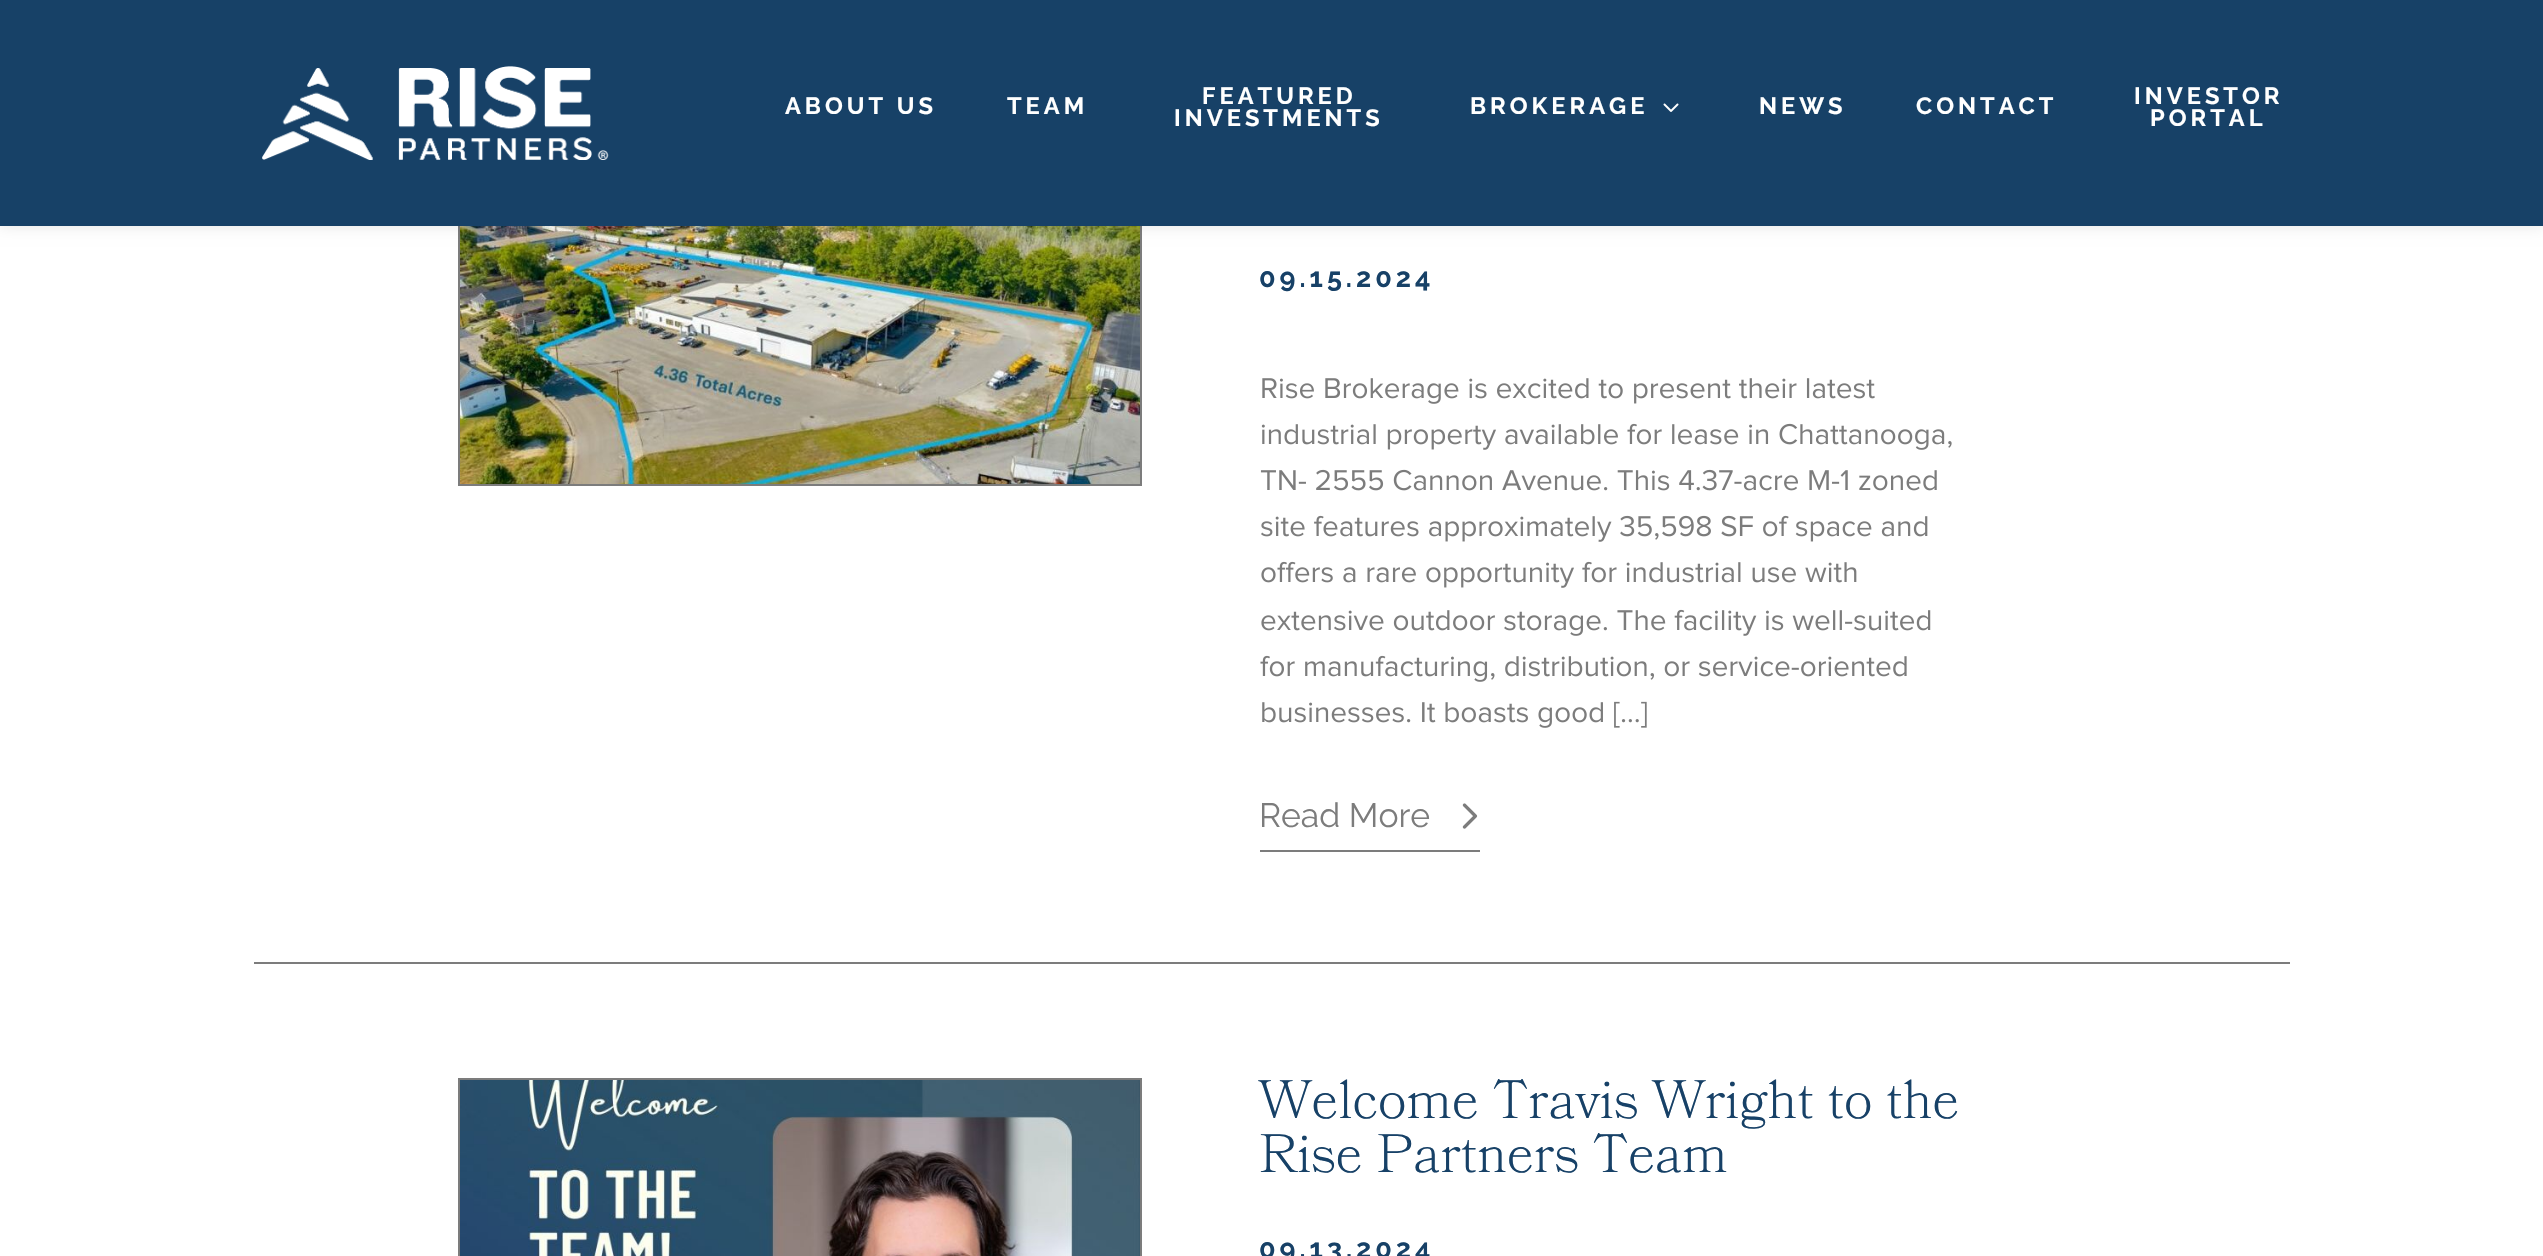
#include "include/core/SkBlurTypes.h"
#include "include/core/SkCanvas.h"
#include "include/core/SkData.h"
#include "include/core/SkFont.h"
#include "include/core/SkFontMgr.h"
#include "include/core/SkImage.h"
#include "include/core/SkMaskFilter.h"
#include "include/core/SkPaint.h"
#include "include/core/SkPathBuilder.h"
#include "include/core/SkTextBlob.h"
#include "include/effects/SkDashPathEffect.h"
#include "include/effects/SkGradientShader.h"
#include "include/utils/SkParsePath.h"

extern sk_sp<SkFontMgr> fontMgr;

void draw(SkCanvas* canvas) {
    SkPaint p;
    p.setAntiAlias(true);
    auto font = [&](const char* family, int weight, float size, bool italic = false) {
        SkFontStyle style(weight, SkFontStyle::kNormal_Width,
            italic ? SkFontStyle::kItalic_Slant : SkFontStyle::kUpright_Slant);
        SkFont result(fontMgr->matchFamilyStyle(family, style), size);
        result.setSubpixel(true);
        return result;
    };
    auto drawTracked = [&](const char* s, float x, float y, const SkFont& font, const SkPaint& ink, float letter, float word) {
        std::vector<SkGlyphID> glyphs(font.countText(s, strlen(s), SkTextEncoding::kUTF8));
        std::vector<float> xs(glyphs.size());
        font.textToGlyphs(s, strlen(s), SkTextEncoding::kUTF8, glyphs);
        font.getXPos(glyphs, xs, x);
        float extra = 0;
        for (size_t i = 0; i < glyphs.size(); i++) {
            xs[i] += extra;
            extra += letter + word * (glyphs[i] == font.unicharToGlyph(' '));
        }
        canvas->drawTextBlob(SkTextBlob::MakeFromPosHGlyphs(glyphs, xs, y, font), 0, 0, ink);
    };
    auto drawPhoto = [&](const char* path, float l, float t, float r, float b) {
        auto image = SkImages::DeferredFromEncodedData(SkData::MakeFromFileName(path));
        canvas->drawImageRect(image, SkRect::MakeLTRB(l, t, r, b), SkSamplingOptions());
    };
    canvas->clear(0xFFFFFFFF);
    p.setStyle(SkPaint::kStroke_Style);
    p.setStrokeWidth(2);
    p.setColor(0xFF7C7C7C);
    canvas->drawRect(SkRect::MakeLTRB(459, 55, 1141, 485), p);
    drawPhoto("media/3.png", 460, 226, 1140, 484);
    p.setStyle(SkPaint::kFill_Style);
    p.setColor(0x1A000000);
    p.setMaskFilter(SkMaskFilter::MakeBlur(kNormal_SkBlurStyle, 7));
    canvas->drawRect(SkRect::MakeLTRB(0, 0, 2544, 226), p);
    p.setMaskFilter(nullptr);
    p.setColor(0xFF174167);
    canvas->drawRect(SkRect::MakeLTRB(0, 0, 2543, 226), p);
    drawPhoto("media/1.png", 262, 66, 609, 160);
    auto font1 = font("Raleway", 700, 23.6f);
    p.setColor(0xFFFFFFFF);
    {
        const struct { const char* s; float x, y; } items[] = {
            {"ABOUT US", 785, 114},
            {"TEAM", 1007, 114},
            {"FEATURED", 1202, 104},
            {"INVESTMENTS", 1174, 126},
            {"BROKERAGE", 1470, 114},
        };
        for (auto [s, x, y] : items) {
            drawTracked(s, x, y, font1, p, 4, 0);
        }
    }
    drawPhoto("media/2.png", 1663, 103, 1679, 112);
    {
        const struct { const char* s; float x, y; } items[] = {
            {"NEWS", 1759, 114},
            {"CONTACT", 1916, 114},
            {"INVESTOR", 2134, 104},
            {"PORTAL", 2150, 126},
        };
        for (auto [s, x, y] : items) {
            drawTracked(s, x, y, font1, p, 4, 0);
        }
    }
    p.setColor(0xFF7C7C7C);
    canvas->drawRect(SkRect::MakeLTRB(254, 962, 2290, 964), p);
    auto font2 = font("Raleway", 700, 27);
    p.setColor(0xFF174167);
    drawTracked("09.15.2024", 1259, 287, font2, p, 4, 0);
    drawPhoto("media/4.png", 1262, 378, 1875, 404);
    drawPhoto("media/5.png", 1261, 423, 1952, 450);
    drawPhoto("media/6.png", 1260, 469, 1937, 491);
    drawPhoto("media/7.png", 1261, 515, 1928, 542);
    drawPhoto("media/8.png", 1261, 561, 1857, 588);
    drawPhoto("media/9.png", 1261, 609, 1931, 636);
    drawPhoto("media/10.png", 1260, 655, 1907, 682);
    drawPhoto("media/11.png", 1262, 701, 1647, 728);
    p.setColor(0xFF7C7C7C);
    canvas->drawRect(SkRect::MakeLTRB(1260, 850, 1480, 852), p);
    auto font3 = font("Raleway", 400, 33.75f);
    canvas->drawString("Read More", 1259, 827, font3, p);
    drawPhoto("media/12.png", 1462, 803, 1478, 829);
    p.setStyle(SkPaint::kStroke_Style);
    canvas->drawRect(SkRect::MakeLTRB(459, 1079, 1141, 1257), p);
    drawPhoto("media/13.png", 460, 1080, 1140, 1256);
    auto font4 = font("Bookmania", 300, 54);
    p.setStyle(SkPaint::kFill_Style);
    p.setColor(0xFF174167);
    canvas->drawString("Welcome Travis Wright to the", 1259, 1118, font4, p);
    canvas->drawString("Rise Partners Team", 1259, 1172, font4, p);
    drawTracked("09.13.2024", 1259, 1258, font2, p, 4, 0);
}
